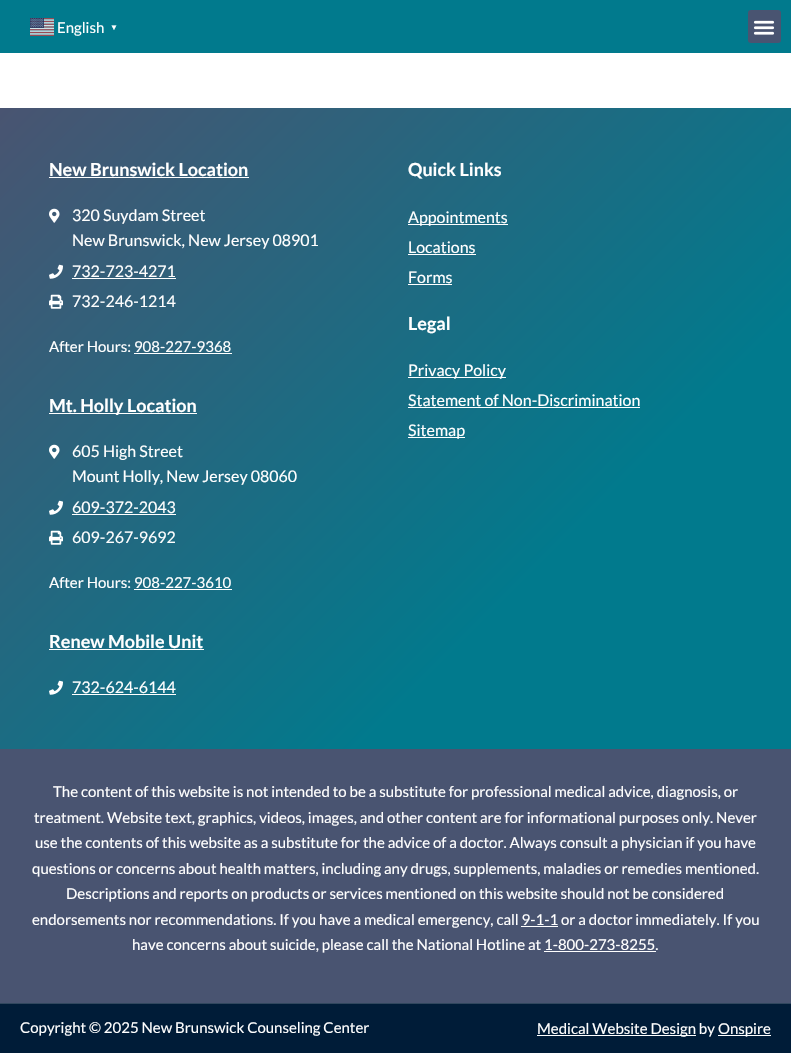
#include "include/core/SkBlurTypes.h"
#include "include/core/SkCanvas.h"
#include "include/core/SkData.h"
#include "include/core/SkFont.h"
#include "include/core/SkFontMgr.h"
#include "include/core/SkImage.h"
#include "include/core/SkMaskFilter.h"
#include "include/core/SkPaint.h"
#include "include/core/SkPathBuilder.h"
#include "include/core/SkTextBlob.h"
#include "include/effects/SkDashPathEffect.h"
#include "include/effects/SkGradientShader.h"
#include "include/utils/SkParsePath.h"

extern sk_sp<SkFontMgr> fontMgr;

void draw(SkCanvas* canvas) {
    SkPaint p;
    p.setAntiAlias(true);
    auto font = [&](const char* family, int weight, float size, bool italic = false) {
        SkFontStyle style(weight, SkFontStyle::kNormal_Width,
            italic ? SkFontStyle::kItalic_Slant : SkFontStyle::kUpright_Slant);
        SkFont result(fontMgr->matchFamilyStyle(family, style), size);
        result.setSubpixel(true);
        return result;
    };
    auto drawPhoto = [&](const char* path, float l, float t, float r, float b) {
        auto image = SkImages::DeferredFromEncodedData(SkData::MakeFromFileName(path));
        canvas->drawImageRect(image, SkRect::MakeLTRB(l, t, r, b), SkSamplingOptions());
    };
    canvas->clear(0xFFFFFFFF);
    p.setColor(0xFF017A8D);
    canvas->drawRect(SkRect::MakeLTRB(0, 0, 791, 53), p);
    drawPhoto("media/1.png", 30, 18, 54, 36);
    auto font1 = font("Lato", 400, 15);
    p.setColor(0xFFFFFFFF);
    canvas->drawString("English", 57, 33, font1, p);
    auto font2 = font("Liberation Sans", 700, 8);
    canvas->drawString("▼", 110, 30, font2, p);
    p.setColor(0xFF495471);
    canvas->drawRoundRect(SkRect::MakeLTRB(748, 10, 781, 43), 3, 3, p);
    drawPhoto("media/2.png", 753, 20, 775, 35);
    {
        const SkColor colors[] = {0xFF017A8D, 0xFF495471};
        const float stops[] = {0.3f, 1};
        const SkPoint ends[] = {{754, 786}, {37, 71}};
        p.setShader(SkGradientShader::MakeLinear(ends, colors, stops, 2, SkTileMode::kClamp));
        p.setAlpha(255);
    }
    canvas->drawRect(SkRect::MakeLTRB(0, 108, 791, 749), p);
    auto font3 = font("Lato", 700, 18);
    p.setShader(nullptr);
    p.setColor(0xFFFFFFFF);
    canvas->drawString("New Brunswick Location", 49, 176, font3, p);
    canvas->drawRect(SkRect::MakeLTRB(49, 177, 249, 178), p);
    drawPhoto("media/3.png", 49, 208, 60, 223);
    auto font4 = font("Lato", 400, 16);
    canvas->drawString("320 Suydam Street", 72, 221, font4, p);
    canvas->drawString("New Brunswick, New Jersey 08901", 72, 246, font4, p);
    drawPhoto("media/4.png", 49, 264, 63, 279);
    canvas->drawString("732-723-4271", 72, 277, font4, p);
    canvas->drawRect(SkRect::MakeLTRB(72, 278, 176, 279), p);
    drawPhoto("media/5.png", 49, 294, 63, 309);
    canvas->drawString("732-246-1214", 72, 307, font4, p);
    canvas->drawString("After Hours: 908-227-9368", 49, 352, font1, p);
    canvas->drawRect(SkRect::MakeLTRB(134, 353, 232, 354), p);
    canvas->drawRect(SkRect::MakeLTRB(49, 413, 197, 414), p);
    canvas->drawString("Mt. Holly Location", 49, 412, font3, p);
    drawPhoto("media/6.png", 49, 444, 60, 459);
    canvas->drawString("605 High Street", 72, 457, font4, p);
    canvas->drawString("Mount Holly, New Jersey 08060", 72, 482, font4, p);
    drawPhoto("media/7.png", 49, 500, 63, 515);
    canvas->drawString("609-372-2043", 72, 513, font4, p);
    canvas->drawRect(SkRect::MakeLTRB(72, 514, 176, 515), p);
    drawPhoto("media/8.png", 49, 530, 63, 545);
    canvas->drawString("609-267-9692", 72, 543, font4, p);
    canvas->drawString("After Hours: 908-227-3610", 49, 588, font1, p);
    canvas->drawRect(SkRect::MakeLTRB(134, 589, 232, 590), p);
    canvas->drawString("Renew Mobile Unit", 49, 648, font3, p);
    canvas->drawRect(SkRect::MakeLTRB(49, 649, 204, 650), p);
    drawPhoto("media/9.png", 49, 680, 63, 695);
    canvas->drawString("732-624-6144", 72, 693, font4, p);
    canvas->drawRect(SkRect::MakeLTRB(72, 694, 176, 695), p);
    canvas->drawString("Quick Links", 408, 176, font3, p);
    canvas->drawRect(SkRect::MakeLTRB(408, 224, 508, 225), p);
    canvas->drawString("Appointments", 408, 223, font4, p);
    canvas->drawString("Locations", 408, 253, font4, p);
    canvas->drawRect(SkRect::MakeLTRB(408, 254, 476, 255), p);
    canvas->drawString("Forms", 408, 283, font4, p);
    canvas->drawRect(SkRect::MakeLTRB(408, 284, 452, 285), p);
    canvas->drawString("Legal", 408, 330, font3, p);
    canvas->drawRect(SkRect::MakeLTRB(408, 377, 506, 378), p);
    canvas->drawString("Privacy Policy", 408, 376, font4, p);
    canvas->drawString("Statement of Non-Discrimination", 408, 406, font4, p);
    canvas->drawRect(SkRect::MakeLTRB(408, 407, 640, 408), p);
    canvas->drawRect(SkRect::MakeLTRB(408, 437, 465, 438), p);
    canvas->drawString("Sitemap", 408, 436, font4, p);
    p.setColor(0xFF495471);
    canvas->drawRect(SkRect::MakeLTRB(0, 749, 791, 1003), p);
    p.setColor(0xFFFFFFFF);
    {
        const struct { const char* s; float x, y; } items[] = {
            {"The content of this website is not intended to be a substitute for professional medical advice, diagnosis, or", 53, 797},
            {"treatment. Website text, graphics, videos, images, and other content are for informational purposes only. Never", 34, 823},
            {"use the contents of this website as a substitute for the advice of a doctor. Always consult a physician if you have", 35, 848},
            {"questions or concerns about health matters, including any drugs, supplements, maladies or remedies mentioned.", 32, 874},
            {"Descriptions and reports on products or services mentioned on this website should not be considered", 66, 899},
            {"endorsements nor recommendations. If you have a medical emergency, call 9-1-1 or a doctor immediately. If you", 32, 925},
        };
        for (auto [s, x, y] : items) {
            canvas->drawString(s, x, y, font1, p);
        }
    }
    canvas->drawRect(SkRect::MakeLTRB(521, 926, 558, 927), p);
    canvas->drawString("have concerns about suicide, please call the National Hotline at 1-800-273-8255.", 132, 950, font1, p);
    {
        const struct { float l, t, r, b; SkColor color; } items[] = {
            {544, 951, 656, 952, 0xFFFFFFFF},
            {0, 1004, 791, 1053, 0xFF001C38},
            {0, 1003, 791, 1004, 0xFF30475E},
        };
        for (auto [l, t, r, b, color] : items) {
            p.setColor(color);
            canvas->drawRect(SkRect::MakeLTRB(l, t, r, b), p);
        }
    }
    p.setColor(0xFFFFFFFF);
    canvas->drawString("Copyright © 2025 New Brunswick Counseling Center", 20, 1033, font1, p);
    canvas->drawRect(SkRect::MakeLTRB(537, 1035, 696, 1036), p);
    canvas->drawString("Medical Website Design by", 537, 1034, font1, p);
    canvas->drawRect(SkRect::MakeLTRB(718, 1035, 771, 1036), p);
    canvas->drawString("Onspire", 718, 1034, font1, p);
}
